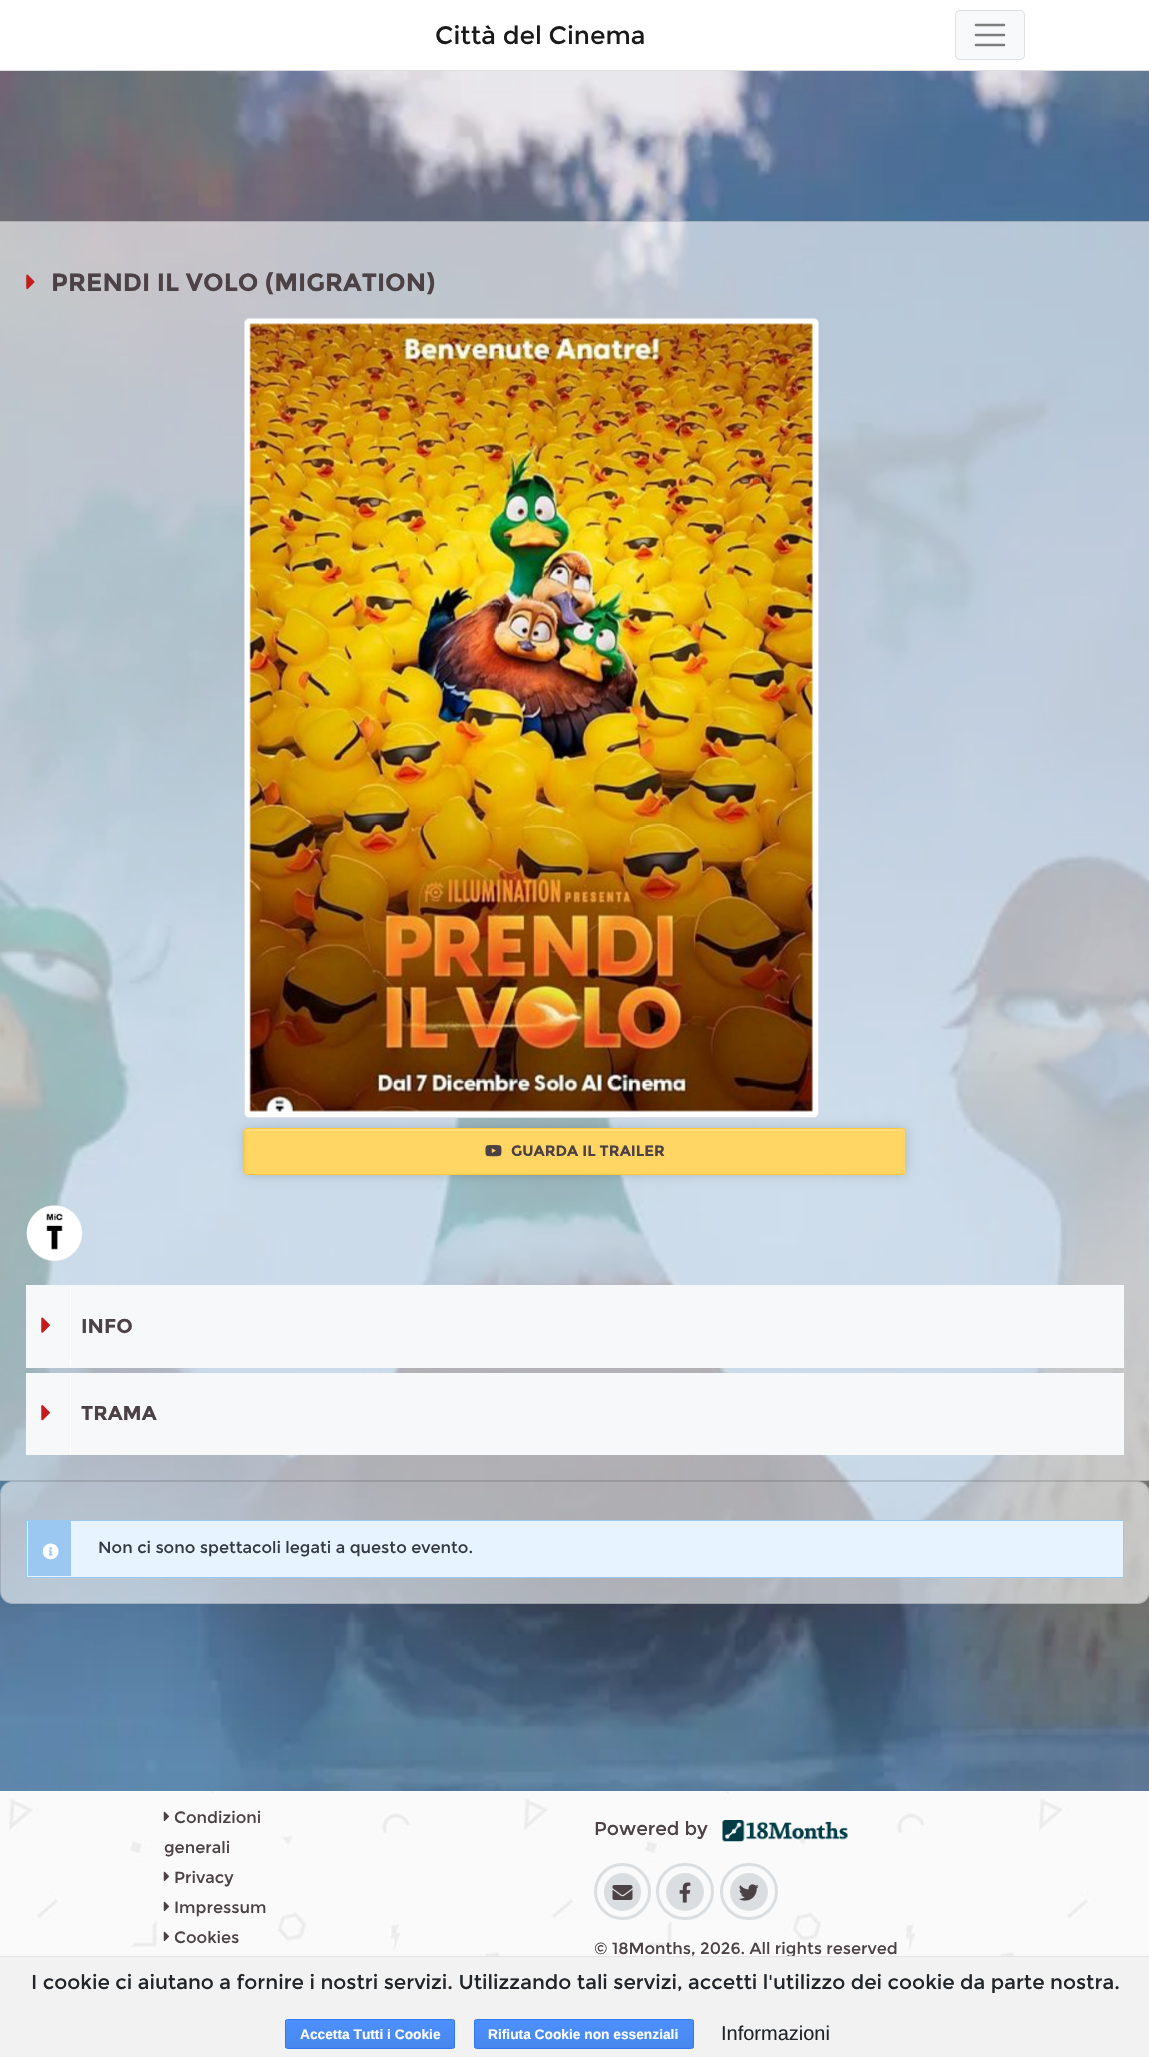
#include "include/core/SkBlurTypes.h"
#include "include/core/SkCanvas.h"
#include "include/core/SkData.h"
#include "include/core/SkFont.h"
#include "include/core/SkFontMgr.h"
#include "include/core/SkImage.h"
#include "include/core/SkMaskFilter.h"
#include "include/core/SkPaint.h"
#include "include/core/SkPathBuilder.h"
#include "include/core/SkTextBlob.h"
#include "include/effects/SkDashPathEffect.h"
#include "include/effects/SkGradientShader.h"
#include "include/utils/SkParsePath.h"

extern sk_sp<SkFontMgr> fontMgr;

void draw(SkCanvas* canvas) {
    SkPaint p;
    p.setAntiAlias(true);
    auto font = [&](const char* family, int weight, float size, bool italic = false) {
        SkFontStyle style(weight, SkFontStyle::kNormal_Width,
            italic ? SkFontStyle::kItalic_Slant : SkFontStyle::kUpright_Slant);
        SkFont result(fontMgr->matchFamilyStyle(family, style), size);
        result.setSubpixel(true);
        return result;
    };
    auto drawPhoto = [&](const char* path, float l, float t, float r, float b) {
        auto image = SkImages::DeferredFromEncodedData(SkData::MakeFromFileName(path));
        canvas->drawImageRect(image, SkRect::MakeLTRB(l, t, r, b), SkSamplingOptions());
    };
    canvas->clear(0xFFFFFFFF);
    p.setColor(0xFFDDDDDD);
    canvas->drawRect(SkRect::MakeLTRB(0, 70, 1149, 71), p);
    auto font1 = font("Montserrat", 400, 25);
    p.setColor(0xFF1A1A1A);
    canvas->drawString("Città del Cinema", 435, 44, font1, p);
    p.setColor(0xFFF8F9FA);
    canvas->drawRoundRect(SkRect::MakeLTRB(955, 10, 1025, 60), 5, 5, p);
    p.setStyle(SkPaint::kStroke_Style);
    p.setStrokeWidth(1);
    p.setColor(0x1A000000);
    canvas->drawRoundRect(SkRect::MakeLTRB(955.5f, 10.5f, 1024.5f, 59.5f), 4.5f, 4.5f, p);
    p.setStrokeWidth(2.5f);
    p.setStrokeCap(SkPaint::kRound_Cap);
    p.setColor(0xFF7C7D7D);
    canvas->drawPath(SkPathBuilder().moveTo(976, 25).lineTo(1004, 25).moveTo(976, 35).lineTo(1004, 35).moveTo(976, 45).lineTo(1004, 45).detach(), p);
    drawPhoto("media/1.png", 0, 71, 1149, 1791);
    p.setStyle(SkPaint::kFill_Style);
    p.setColor(0x99FFFFFF);
    canvas->drawRect(SkRect::MakeLTRB(0, 221, 1149, 1481), p);
    p.setStyle(SkPaint::kStroke_Style);
    p.setStrokeWidth(1);
    p.setStrokeCap(SkPaint::kButt_Cap);
    p.setColor(0x1F000000);
    canvas->drawRect(SkRect::MakeLTRB(-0.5f, 221.5f, 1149.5f, 1480.5f), p);
    drawPhoto("media/2.png", 26, 274, 35, 290);
    auto font2 = font("Montserrat", 700, 25);
    p.setStyle(SkPaint::kFill_Style);
    p.setColor(0xFF4C4145);
    canvas->drawString("PRENDI IL VOLO (MIGRATION)", 51, 291, font2, p);
    p.setColor(0x29000000);
    p.setMaskFilter(SkMaskFilter::MakeBlur(kNormal_SkBlurStyle, 6));
    canvas->drawRoundRect(SkRect::MakeLTRB(244, 1128, 906, 1175), 4, 4, p);
    p.setMaskFilter(nullptr);
    p.setColor(0xFFFFFFFF);
    canvas->drawRoundRect(SkRect::MakeLTRB(244.5f, 318.5f, 818.5f, 1117.5f), 4.5f, 4.5f, p);
    p.setStyle(SkPaint::kStroke_Style);
    p.setColor(0xFFDEE2E6);
    canvas->drawRoundRect(SkRect::MakeLTRB(244.5f, 318.5f, 818.5f, 1117.5f), 4.5f, 4.5f, p);
    drawPhoto("media/3.png", 249, 323, 813, 1112);
    p.setStyle(SkPaint::kFill_Style);
    p.setColor(0xFFFFD564);
    canvas->drawRoundRect(SkRect::MakeLTRB(244, 1128, 906, 1175), 4, 4, p);
    p.setColor(0xFFFFDD83);
    canvas->drawPath(SkPathBuilder().moveTo(248, 1131).lineTo(902, 1131).cubicTo(904, 1131, 905, 1132, 905, 1134).lineTo(905, 1132).cubicTo(905, 1130, 904, 1129, 902, 1129).lineTo(248, 1129).cubicTo(246, 1129, 245, 1130, 245, 1132).lineTo(245, 1134).cubicTo(245, 1132, 246, 1131, 248, 1131).close().detach(), p);
    p.setStyle(SkPaint::kStroke_Style);
    p.setColor(0xFFFFC936);
    canvas->drawRoundRect(SkRect::MakeLTRB(244.5f, 1128.5f, 905.5f, 1174.5f), 3.5f, 3.5f, p);
    drawPhoto("media/4.png", 485, 1145, 502, 1157);
    auto font3 = font("Montserrat", 700, 15);
    p.setStyle(SkPaint::kFill_Style);
    p.setColor(0xFF4C4145);
    canvas->drawString("GUARDA IL TRAILER", 511, 1156, font3, p);
    drawPhoto("media/5.png", 26, 1205, 83, 1261);
    p.setColor(0xFFFFFFFF);
    canvas->drawRect(SkRect::MakeLTRB(26, 1285, 30, 1289), p);
    p.setColor(0xFFF7F8F9);
    canvas->drawPath(SkPathBuilder().moveTo(30, 1285).lineTo(1124, 1285).lineTo(1124, 1368).lineTo(26, 1368).lineTo(26, 1289).cubicTo(26, 1287, 28, 1285, 30, 1285).close().detach(), p);
    p.setColor(0xFFFFFFFF);
    canvas->drawRect(SkRect::MakeLTRB(70, 1286, 71, 1366), p);
    drawPhoto("media/6.png", 41, 1317, 50, 1333);
    auto font4 = font("Montserrat", 700, 20);
    p.setColor(0xFF4C4145);
    canvas->drawString("INFO", 81, 1333, font4, p);
    p.setColor(0xFFFFFFFF);
    canvas->drawRect(SkRect::MakeLTRB(1120, 1373, 1124, 1377), p);
    p.setColor(0xFFF7F8F9);
    canvas->drawPath(SkPathBuilder().moveTo(26, 1373).lineTo(1120, 1373).cubicTo(1122, 1373, 1124, 1375, 1124, 1377).lineTo(1124, 1455).lineTo(26, 1455).close().detach(), p);
    p.setColor(0xFFFFFFFF);
    canvas->drawRect(SkRect::MakeLTRB(70, 1374, 71, 1454), p);
    drawPhoto("media/7.png", 41, 1405, 50, 1421);
    p.setColor(0xFF4C4145);
    canvas->drawString("TRAMA", 81, 1420, font4, p);
    p.setColor(0x99FFFFFF);
    canvas->drawRoundRect(SkRect::MakeLTRB(0, 1481, 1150, 1604), 13, 13, p);
    p.setStyle(SkPaint::kStroke_Style);
    p.setColor(0x1F000000);
    canvas->drawRoundRect(SkRect::MakeLTRB(0.5f, 1481.5f, 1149.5f, 1603.5f), 12.5f, 12.5f, p);
    p.setStyle(SkPaint::kFill_Style);
    p.setColor(0xFFE7F4FF);
    canvas->drawRect(SkRect::MakeLTRB(26.5f, 1520.5f, 1123.5f, 1577.5f), p);
    p.setStyle(SkPaint::kStroke_Style);
    p.setColor(0xFF9AC8F1);
    canvas->drawRect(SkRect::MakeLTRB(26.5f, 1520.5f, 1123.5f, 1577.5f), p);
    p.setStyle(SkPaint::kFill_Style);
    canvas->drawRect(SkRect::MakeLTRB(28, 1521, 71, 1576), p);
    drawPhoto("media/8.png", 42, 1543, 59, 1560);
    auto font5 = font("Montserrat", 400, 16.25f);
    p.setColor(0xFF343A40);
    canvas->drawString("Non ci sono spettacoli legati a questo evento.", 98, 1553, font5, p);
    p.setColor(0xFFFAFAFA);
    canvas->drawRect(SkRect::MakeLTRB(0, 1791, 1149, 1956), p);
    drawPhoto("media/9.png", 9, 1791, 1120, 1956);
    drawPhoto("media/10.png", 163, 1811, 170, 1822);
    p.setColor(0xFF4C4145);
    canvas->drawString("Condizioni", 174, 1823, font5, p);
    canvas->drawString("generali", 164, 1853, font5, p);
    drawPhoto("media/10.png", 163, 1871, 170, 1882);
    canvas->drawString("Privacy", 174, 1883, font5, p);
    drawPhoto("media/10.png", 163, 1901, 170, 1912);
    canvas->drawString("Impressum", 174, 1913, font5, p);
    drawPhoto("media/10.png", 163, 1931, 170, 1942);
    canvas->drawString("Cookies", 174, 1943, font5, p);
    auto font6 = font("Montserrat", 400, 18.75f);
    canvas->drawString("Powered by", 594, 1835, font6, p);
    drawPhoto("media/11.png", 722, 1820, 848, 1842);
    p.setColor(0xFFDBDEE1);
    canvas->drawRoundRect(SkRect::MakeLTRB(604, 1873, 641, 1911), 18.5f, 18.5f, p);
    drawPhoto("media/12.png", 612, 1885, 633, 1900);
    p.setStyle(SkPaint::kStroke_Style);
    p.setStrokeWidth(3);
    canvas->drawCircle(622.5f, 1891.5f, 27, p);
    p.setStyle(SkPaint::kFill_Style);
    canvas->drawCircle(685, 1892, 19, p);
    drawPhoto("media/13.png", 679, 1882, 691, 1903);
    p.setStyle(SkPaint::kStroke_Style);
    canvas->drawRoundRect(SkRect::MakeLTRB(657.5f, 1864.5f, 712.5f, 1918.5f), 27, 27, p);
    p.setStyle(SkPaint::kFill_Style);
    canvas->drawCircle(749, 1892, 19, p);
    drawPhoto("media/14.png", 739, 1884, 759, 1901);
    p.setStyle(SkPaint::kStroke_Style);
    canvas->drawRoundRect(SkRect::MakeLTRB(721.5f, 1864.5f, 776.5f, 1918.5f), 27, 27, p);
    p.setStyle(SkPaint::kFill_Style);
    p.setColor(0xFF4C4145);
    canvas->drawString("© 18Months, 2026. All rights reserved", 594, 1954, font5, p);
    p.setColor(0xFFF2F2F2);
    canvas->drawRect(SkRect::MakeLTRB(0, 1957, 1149, 2057), p);
    p.setColor(0xFFE4E4E4);
    canvas->drawRect(SkRect::MakeLTRB(0, 1956, 1149, 1957), p);
    auto font7 = font("Montserrat", 400, 20);
    p.setColor(0xFF212529);
    canvas->drawString("I cookie ci aiutano a fornire i nostri servizi. Utilizzando tali servizi, accetti l'utilizzo dei cookie da parte nostra.", 31, 1989, font7, p);
    canvas->save();
    canvas->clipPath(SkPathBuilder().moveTo(287.5f, 2019).lineTo(452.5f, 2019).cubicTo(454, 2019, 455, 2020, 455, 2021.5f).lineTo(455, 2046.5f).cubicTo(455, 2048, 454, 2049, 452.5f, 2049).lineTo(287.5f, 2049).cubicTo(286, 2049, 285, 2048, 285, 2046.5f).lineTo(285, 2021.5f).cubicTo(285, 2020, 286, 2019, 287.5f, 2019).close().detach(), true);
    {
        const SkColor colors[] = {0xFF4D90FE, 0xFF4787ED};
        const float stops[] = {0, 1};
        const SkPoint ends[] = {{370, 2020}, {370, 2048}};
        p.setShader(SkGradientShader::MakeLinear(ends, colors, stops, 2, SkTileMode::kClamp));
        p.setAlpha(255);
    }
    canvas->drawRect(SkRect::MakeLTRB(285, 2020, 455, 2048), p);
    canvas->restore();
    p.setStyle(SkPaint::kStroke_Style);
    p.setStrokeWidth(1);
    p.setShader(nullptr);
    p.setColor(0xFF3079ED);
    canvas->drawRoundRect(SkRect::MakeLTRB(285.5f, 2019.5f, 454.5f, 2048.5f), 2, 2, p);
    auto font8 = font("Liberation Sans", 700, 13.75f);
    p.setStyle(SkPaint::kFill_Style);
    p.setColor(0xFFFFFFFF);
    canvas->drawString("Accetta Tutti i Cookie", 300, 2039, font8, p);
    canvas->save();
    canvas->clipPath(SkPathBuilder().moveTo(476.5f, 2019).lineTo(691.5f, 2019).cubicTo(693, 2019, 694, 2020, 694, 2021.5f).lineTo(694, 2046.5f).cubicTo(694, 2048, 693, 2049, 691.5f, 2049).lineTo(476.5f, 2049).cubicTo(475, 2049, 474, 2048, 474, 2046.5f).lineTo(474, 2021.5f).cubicTo(474, 2020, 475, 2019, 476.5f, 2019).close().detach(), true);
    {
        const SkColor colors[] = {0xFF4D90FE, 0xFF4787ED};
        const float stops[] = {0, 1};
        const SkPoint ends[] = {{584, 2020}, {584, 2048}};
        p.setShader(SkGradientShader::MakeLinear(ends, colors, stops, 2, SkTileMode::kClamp));
        p.setAlpha(255);
    }
    canvas->drawRect(SkRect::MakeLTRB(474, 2020, 694, 2048), p);
    canvas->restore();
    p.setStyle(SkPaint::kStroke_Style);
    p.setShader(nullptr);
    p.setColor(0xFF3079ED);
    canvas->drawRoundRect(SkRect::MakeLTRB(474.5f, 2019.5f, 693.5f, 2048.5f), 2, 2, p);
    p.setStyle(SkPaint::kFill_Style);
    p.setColor(0xFFFFFFFF);
    canvas->drawString("Rifiuta Cookie non essenziali", 488, 2039, font8, p);
    auto font9 = font("Liberation Sans", 400, 20);
    p.setColor(0xFF212529);
    canvas->drawString("Informazioni", 721, 2040, font9, p);
}
